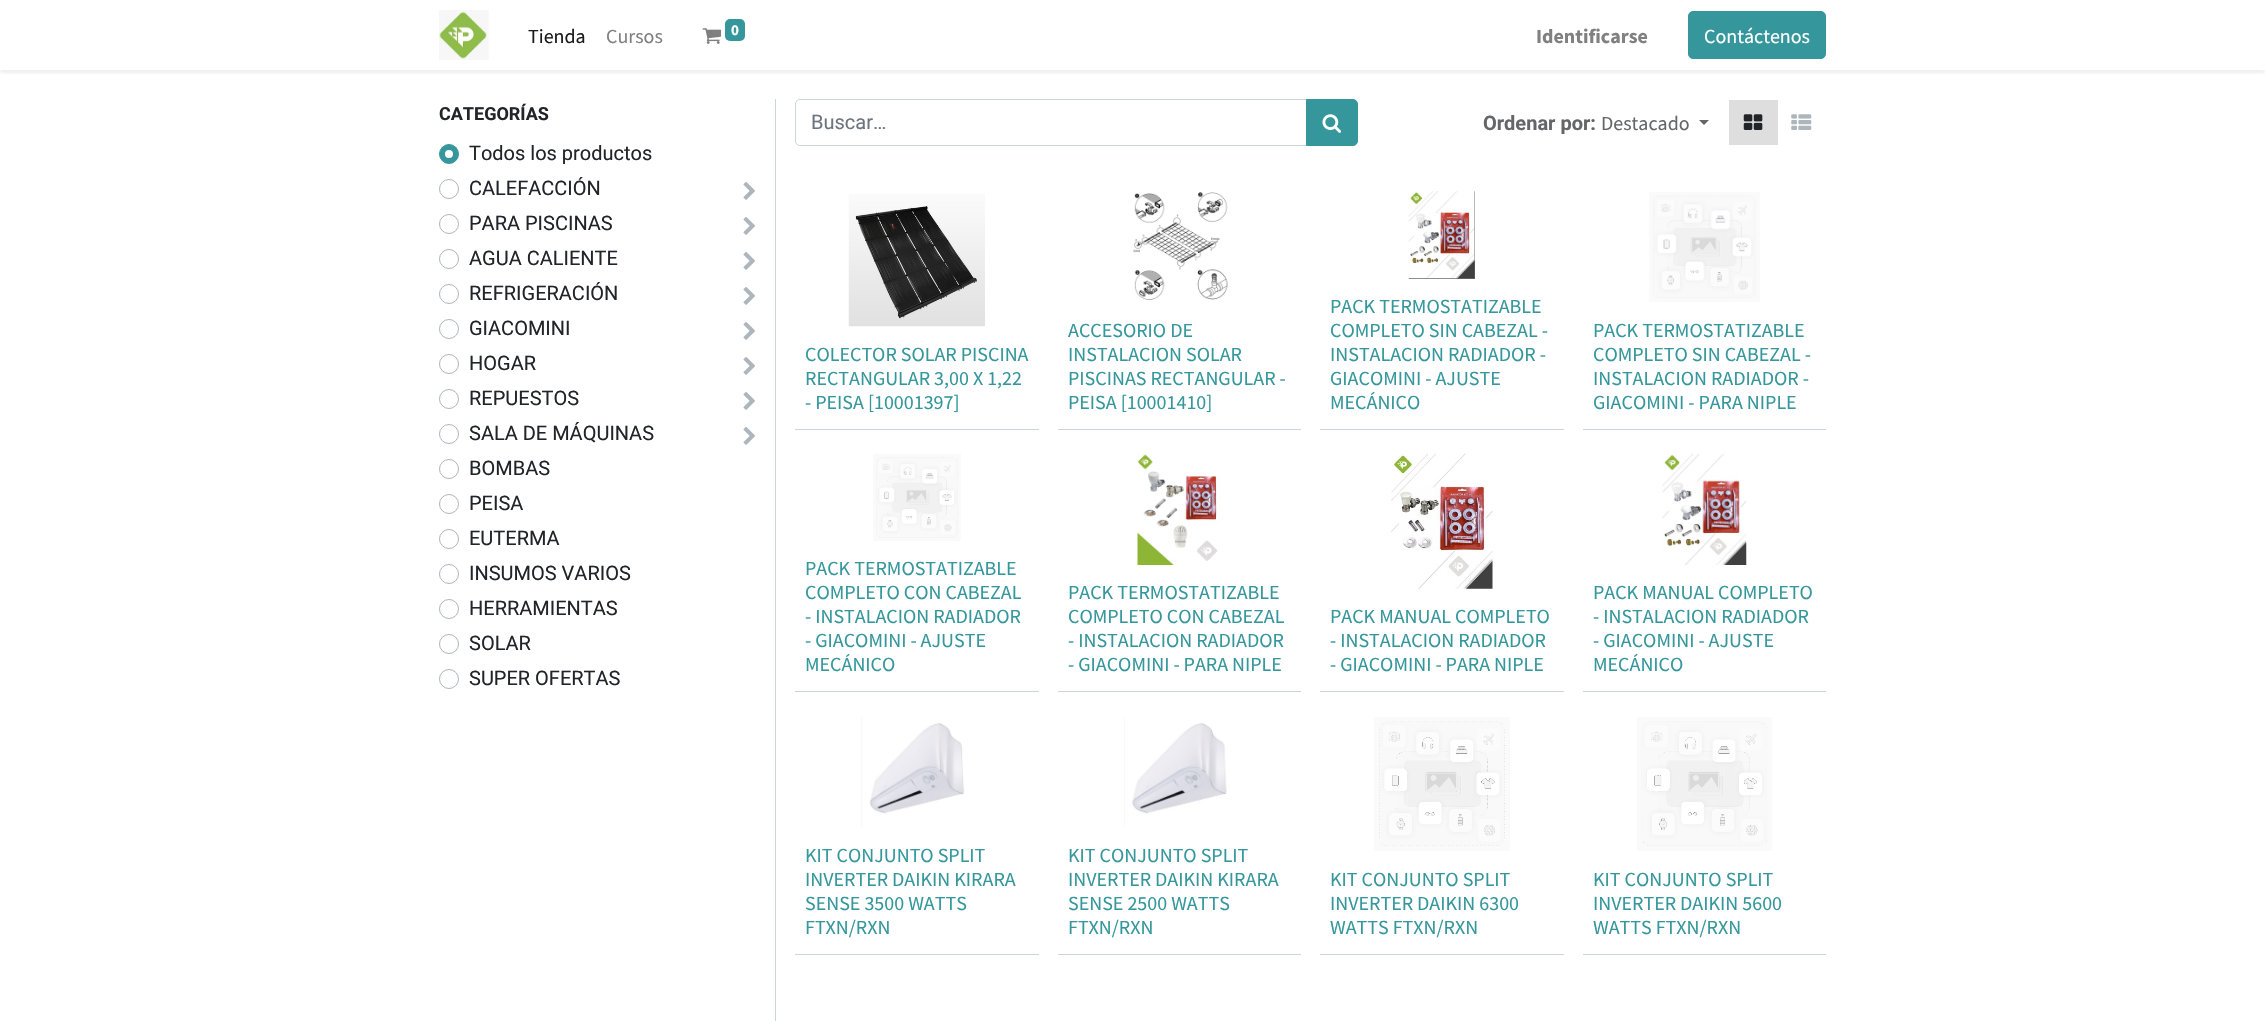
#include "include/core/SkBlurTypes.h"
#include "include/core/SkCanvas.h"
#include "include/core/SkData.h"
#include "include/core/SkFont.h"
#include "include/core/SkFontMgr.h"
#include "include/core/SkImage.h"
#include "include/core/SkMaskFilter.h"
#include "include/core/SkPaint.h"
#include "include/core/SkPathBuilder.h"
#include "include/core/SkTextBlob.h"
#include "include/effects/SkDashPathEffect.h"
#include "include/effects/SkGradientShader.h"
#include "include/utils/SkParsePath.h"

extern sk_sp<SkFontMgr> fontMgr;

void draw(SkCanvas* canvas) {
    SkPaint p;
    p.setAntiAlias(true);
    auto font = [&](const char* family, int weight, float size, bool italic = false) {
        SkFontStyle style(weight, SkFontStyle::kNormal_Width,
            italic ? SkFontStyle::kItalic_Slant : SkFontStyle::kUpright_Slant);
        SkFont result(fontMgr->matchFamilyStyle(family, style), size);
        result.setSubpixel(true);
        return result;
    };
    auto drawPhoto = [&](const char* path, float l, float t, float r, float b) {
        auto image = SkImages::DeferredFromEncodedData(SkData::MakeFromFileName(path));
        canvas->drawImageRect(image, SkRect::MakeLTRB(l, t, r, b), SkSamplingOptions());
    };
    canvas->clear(0xFFFFFFFF);
    canvas->save();
    canvas->clipRect(SkRect::MakeLTRB(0, 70, 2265, 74));
    p.setColor(0x12000000);
    p.setMaskFilter(SkMaskFilter::MakeBlur(kNormal_SkBlurStyle, 2.5f));
    canvas->drawRect(SkRect::MakeLTRB(0, 3, 2265, 73), p);
    p.setMaskFilter(nullptr);
    canvas->restore();
    drawPhoto("media/1.png", 439, 10, 489, 60);
    auto font1 = font("Source Sans Pro", 400, 20);
    p.setColor(0xFF1A1A1A);
    canvas->drawString("Tienda", 528, 43, font1, p);
    p.setColor(0xFF808080);
    canvas->drawString("Cursos", 606, 43, font1, p);
    drawPhoto("media/2.png", 702, 28, 722, 44);
    p.setColor(0xFF35979C);
    canvas->drawRoundRect(SkRect::MakeLTRB(725, 19, 745, 41), 5, 5, p);
    auto font2 = font("Source Sans Pro", 700, 15);
    p.setColor(0xFFFFFFFF);
    canvas->drawString("0", 731, 35, font2, p);
    auto font3 = font("Source Sans Pro", 700, 20);
    p.setColor(0xFF808080);
    canvas->drawString("Identificarse", 1536, 43, font3, p);
    p.setColor(0xFF35979C);
    canvas->drawRoundRect(SkRect::MakeLTRB(1688.5f, 11.5f, 1825.5f, 58.5f), 4.5f, 4.5f, p);
    p.setStyle(SkPaint::kStroke_Style);
    p.setStrokeWidth(1);
    canvas->drawRoundRect(SkRect::MakeLTRB(1688.5f, 11.5f, 1825.5f, 58.5f), 4.5f, 4.5f, p);
    p.setStyle(SkPaint::kFill_Style);
    p.setColor(0xFFFFFFFF);
    canvas->drawString("Contáctenos", 1704, 43, font1, p);
    p.setColor(0xFFCED4DA);
    canvas->drawRect(SkRect::MakeLTRB(775, 99, 776, 1021), p);
    auto font4 = font("Roboto", 700, 18);
    p.setColor(0xFF212529);
    canvas->drawString("CATEGORÍAS", 439, 120, font4, p);
    p.setColor(0xFF35979C);
    canvas->drawCircle(449, 154, 9.5f, p);
    p.setStyle(SkPaint::kStroke_Style);
    canvas->drawCircle(449, 154, 9.5f, p);
    auto font5 = font("Roboto", 400, 20);
    p.setStyle(SkPaint::kFill_Style);
    p.setColor(0xFF212529);
    canvas->drawString("Todos los productos", 469, 160, font5, p);
    p.setColor(0xFFFFFFFF);
    canvas->drawCircle(449, 154, 4, p);
    p.setStyle(SkPaint::kStroke_Style);
    p.setColor(0xFFADB5BD);
    canvas->drawCircle(449, 189, 9.5f, p);
    p.setStyle(SkPaint::kFill_Style);
    p.setColor(0xFF212529);
    canvas->drawString("CALEFACCIÓN", 469, 195, font5, p);
    drawPhoto("media/3.png", 743, 182, 755, 200);
    p.setStyle(SkPaint::kStroke_Style);
    p.setColor(0xFFADB5BD);
    canvas->drawCircle(449, 224, 9.5f, p);
    p.setStyle(SkPaint::kFill_Style);
    p.setColor(0xFF212529);
    canvas->drawString("PARA PISCINAS", 469, 230, font5, p);
    drawPhoto("media/3.png", 743, 217, 755, 235);
    p.setStyle(SkPaint::kStroke_Style);
    p.setColor(0xFFADB5BD);
    canvas->drawCircle(449, 259, 9.5f, p);
    p.setStyle(SkPaint::kFill_Style);
    p.setColor(0xFF212529);
    canvas->drawString("AGUA CALIENTE", 469, 265, font5, p);
    drawPhoto("media/3.png", 743, 252, 755, 270);
    p.setStyle(SkPaint::kStroke_Style);
    p.setColor(0xFFADB5BD);
    canvas->drawCircle(449, 294, 9.5f, p);
    p.setStyle(SkPaint::kFill_Style);
    p.setColor(0xFF212529);
    canvas->drawString("REFRIGERACIÓN", 469, 300, font5, p);
    drawPhoto("media/3.png", 743, 287, 755, 305);
    p.setStyle(SkPaint::kStroke_Style);
    p.setColor(0xFFADB5BD);
    canvas->drawCircle(449, 329, 9.5f, p);
    p.setStyle(SkPaint::kFill_Style);
    p.setColor(0xFF212529);
    canvas->drawString("GIACOMINI", 469, 335, font5, p);
    drawPhoto("media/3.png", 743, 322, 755, 340);
    p.setStyle(SkPaint::kStroke_Style);
    p.setColor(0xFFADB5BD);
    canvas->drawCircle(449, 364, 9.5f, p);
    p.setStyle(SkPaint::kFill_Style);
    p.setColor(0xFF212529);
    canvas->drawString("HOGAR", 469, 370, font5, p);
    drawPhoto("media/3.png", 743, 357, 755, 375);
    p.setStyle(SkPaint::kStroke_Style);
    p.setColor(0xFFADB5BD);
    canvas->drawCircle(449, 399, 9.5f, p);
    p.setStyle(SkPaint::kFill_Style);
    p.setColor(0xFF212529);
    canvas->drawString("REPUESTOS", 469, 405, font5, p);
    drawPhoto("media/3.png", 743, 392, 755, 410);
    p.setStyle(SkPaint::kStroke_Style);
    p.setColor(0xFFADB5BD);
    canvas->drawCircle(449, 434, 9.5f, p);
    p.setStyle(SkPaint::kFill_Style);
    p.setColor(0xFF212529);
    canvas->drawString("SALA DE MÁQUINAS", 469, 440, font5, p);
    drawPhoto("media/3.png", 743, 427, 755, 445);
    p.setStyle(SkPaint::kStroke_Style);
    p.setColor(0xFFADB5BD);
    canvas->drawCircle(449, 469, 9.5f, p);
    p.setStyle(SkPaint::kFill_Style);
    p.setColor(0xFF212529);
    canvas->drawString("BOMBAS", 469, 475, font5, p);
    p.setStyle(SkPaint::kStroke_Style);
    p.setColor(0xFFADB5BD);
    canvas->drawCircle(449, 504, 9.5f, p);
    p.setStyle(SkPaint::kFill_Style);
    p.setColor(0xFF212529);
    canvas->drawString("PEISA", 469, 510, font5, p);
    p.setStyle(SkPaint::kStroke_Style);
    p.setColor(0xFFADB5BD);
    canvas->drawCircle(449, 539, 9.5f, p);
    p.setStyle(SkPaint::kFill_Style);
    p.setColor(0xFF212529);
    canvas->drawString("EUTERMA", 469, 545, font5, p);
    p.setStyle(SkPaint::kStroke_Style);
    p.setColor(0xFFADB5BD);
    canvas->drawCircle(449, 574, 9.5f, p);
    p.setStyle(SkPaint::kFill_Style);
    p.setColor(0xFF212529);
    canvas->drawString("INSUMOS VARIOS", 469, 580, font5, p);
    p.setStyle(SkPaint::kStroke_Style);
    p.setColor(0xFFADB5BD);
    canvas->drawCircle(449, 609, 9.5f, p);
    p.setStyle(SkPaint::kFill_Style);
    p.setColor(0xFF212529);
    canvas->drawString("HERRAMIENTAS", 469, 615, font5, p);
    p.setStyle(SkPaint::kStroke_Style);
    p.setColor(0xFFADB5BD);
    canvas->drawCircle(449, 644, 9.5f, p);
    p.setStyle(SkPaint::kFill_Style);
    p.setColor(0xFF212529);
    canvas->drawString("SOLAR", 469, 650, font5, p);
    p.setStyle(SkPaint::kStroke_Style);
    p.setColor(0xFFADB5BD);
    canvas->drawCircle(449, 679, 9.5f, p);
    p.setStyle(SkPaint::kFill_Style);
    p.setColor(0xFF212529);
    canvas->drawString("SUPER OFERTAS", 469, 685, font5, p);
    p.setStyle(SkPaint::kStroke_Style);
    p.setColor(0xFFCED4DA);
    canvas->drawPath(SkPathBuilder().moveTo(800, 99.5f).lineTo(1307.5f, 99.5f).lineTo(1307.5f, 145.5f).lineTo(800, 145.5f).cubicTo(797.5f, 145.5f, 795.5f, 143.5f, 795.5f, 141).lineTo(795.5f, 104).cubicTo(795.5f, 101.5f, 797.5f, 99.5f, 800, 99.5f).close().detach(), p);
    p.setStyle(SkPaint::kFill_Style);
    p.setColor(0xFF6C757D);
    canvas->drawString("Buscar…", 811, 129, font5, p);
    p.setColor(0xFF35979C);
    canvas->drawPath(SkPathBuilder().moveTo(1306.5f, 99.5f).lineTo(1353, 99.5f).cubicTo(1355.5f, 99.5f, 1357.5f, 101.5f, 1357.5f, 104).lineTo(1357.5f, 141).cubicTo(1357.5f, 143.5f, 1355.5f, 145.5f, 1353, 145.5f).lineTo(1306.5f, 145.5f).close().detach(), p);
    p.setStyle(SkPaint::kStroke_Style);
    canvas->drawPath(SkPathBuilder().moveTo(1306.5f, 99.5f).lineTo(1353, 99.5f).cubicTo(1355.5f, 99.5f, 1357.5f, 101.5f, 1357.5f, 104).lineTo(1357.5f, 141).cubicTo(1357.5f, 143.5f, 1355.5f, 145.5f, 1353, 145.5f).lineTo(1306.5f, 145.5f).close().detach(), p);
    drawPhoto("media/4.png", 1322, 114, 1342, 133);
    auto font6 = font("Roboto", 700, 20);
    p.setStyle(SkPaint::kFill_Style);
    p.setColor(0xFF646669);
    canvas->drawString("Ordenar por:", 1483, 130, font6, p);
    canvas->drawString("Destacado", 1601, 130, font1, p);
    canvas->drawPath(SkPathBuilder().moveTo(1699, 120).lineTo(1709, 120).lineTo(1704, 125).close().detach(), p);
    p.setColor(0xFFDEDEDE);
    canvas->drawRect(SkRect::MakeLTRB(1729, 100, 1778, 145), p);
    drawPhoto("media/5.png", 1743, 114, 1763, 130);
    drawPhoto("media/6.png", 1791, 114, 1812, 130);
    p.setColor(0xFFCED4DA);
    canvas->drawRect(SkRect::MakeLTRB(795, 429, 1039, 430), p);
    drawPhoto("media/7.png", 848, 194, 985, 327);
    p.setColor(0xFF35979C);
    {
        const struct { const char* s; float x, y; } items[] = {
            {"COLECTOR SOLAR PISCINA", 805, 361},
            {"RECTANGULAR 3,00 X 1,22", 805, 385},
            {"- PEISA [10001397]", 805, 409},
        };
        for (auto [s, x, y] : items) {
            canvas->drawString(s, x, y, font1, p);
        }
    }
    p.setColor(0xFFCED4DA);
    canvas->drawRect(SkRect::MakeLTRB(1058, 429, 1301, 430), p);
    drawPhoto("media/8.png", 1133, 192, 1228, 300);
    p.setColor(0xFF35979C);
    {
        const struct { const char* s; float x, y; } items[] = {
            {"ACCESORIO DE", 1068, 337},
            {"INSTALACION SOLAR", 1068, 361},
            {"PISCINAS RECTANGULAR -", 1068, 385},
            {"PEISA [10001410]", 1068, 409},
        };
        for (auto [s, x, y] : items) {
            canvas->drawString(s, x, y, font1, p);
        }
    }
    p.setColor(0xFFCED4DA);
    canvas->drawRect(SkRect::MakeLTRB(1320, 429, 1564, 430), p);
    drawPhoto("media/9.png", 1408, 191, 1475, 279);
    p.setColor(0xFF35979C);
    {
        const struct { const char* s; float x, y; } items[] = {
            {"PACK TERMOSTATIZABLE", 1330, 313},
            {"COMPLETO SIN CABEZAL -", 1330, 337},
            {"INSTALACION RADIADOR -", 1330, 361},
            {"GIACOMINI - AJUSTE", 1330, 385},
            {"MECÁNICO", 1330, 409},
        };
        for (auto [s, x, y] : items) {
            canvas->drawString(s, x, y, font1, p);
        }
    }
    p.setColor(0xFFCED4DA);
    canvas->drawRect(SkRect::MakeLTRB(1583, 429, 1826, 430), p);
    drawPhoto("media/10.png", 1649, 192, 1760, 302);
    p.setColor(0xFF35979C);
    {
        const struct { const char* s; float x, y; } items[] = {
            {"PACK TERMOSTATIZABLE", 1593, 337},
            {"COMPLETO SIN CABEZAL -", 1593, 361},
            {"INSTALACION RADIADOR -", 1593, 385},
            {"GIACOMINI - PARA NIPLE", 1593, 409},
        };
        for (auto [s, x, y] : items) {
            canvas->drawString(s, x, y, font1, p);
        }
    }
    p.setColor(0xFFCED4DA);
    canvas->drawRect(SkRect::MakeLTRB(795, 691, 1039, 692), p);
    drawPhoto("media/11.png", 873, 454, 961, 541);
    p.setColor(0xFF35979C);
    {
        const struct { const char* s; float x, y; } items[] = {
            {"PACK TERMOSTATIZABLE", 805, 575},
            {"COMPLETO CON CABEZAL", 805, 599},
            {"- INSTALACION RADIADOR", 805, 623},
            {"- GIACOMINI - AJUSTE", 805, 647},
            {"MECÁNICO", 805, 671},
        };
        for (auto [s, x, y] : items) {
            canvas->drawString(s, x, y, font1, p);
        }
    }
    p.setColor(0xFFCED4DA);
    canvas->drawRect(SkRect::MakeLTRB(1058, 691, 1301, 692), p);
    drawPhoto("media/12.png", 1137, 454, 1221, 565);
    p.setColor(0xFF35979C);
    {
        const struct { const char* s; float x, y; } items[] = {
            {"PACK TERMOSTATIZABLE", 1068, 599},
            {"COMPLETO CON CABEZAL", 1068, 623},
            {"- INSTALACION RADIADOR", 1068, 647},
            {"- GIACOMINI - PARA NIPLE", 1068, 671},
        };
        for (auto [s, x, y] : items) {
            canvas->drawString(s, x, y, font1, p);
        }
    }
    p.setColor(0xFFCED4DA);
    canvas->drawRect(SkRect::MakeLTRB(1320, 691, 1564, 692), p);
    drawPhoto("media/13.png", 1391, 453, 1493, 589);
    p.setColor(0xFF35979C);
    {
        const struct { const char* s; float x, y; } items[] = {
            {"PACK MANUAL COMPLETO", 1330, 623},
            {"- INSTALACION RADIADOR", 1330, 647},
            {"- GIACOMINI - PARA NIPLE", 1330, 671},
        };
        for (auto [s, x, y] : items) {
            canvas->drawString(s, x, y, font1, p);
        }
    }
    p.setColor(0xFFCED4DA);
    canvas->drawRect(SkRect::MakeLTRB(1583, 691, 1826, 692), p);
    drawPhoto("media/14.png", 1662, 453, 1747, 565);
    p.setColor(0xFF35979C);
    {
        const struct { const char* s; float x, y; } items[] = {
            {"PACK MANUAL COMPLETO", 1593, 599},
            {"- INSTALACION RADIADOR", 1593, 623},
            {"- GIACOMINI - AJUSTE", 1593, 647},
            {"MECÁNICO", 1593, 671},
        };
        for (auto [s, x, y] : items) {
            canvas->drawString(s, x, y, font1, p);
        }
    }
    p.setColor(0xFFCED4DA);
    canvas->drawRect(SkRect::MakeLTRB(795, 954, 1039, 955), p);
    drawPhoto("media/15.png", 861, 717, 964, 827);
    p.setColor(0xFF35979C);
    {
        const struct { const char* s; float x, y; } items[] = {
            {"KIT CONJUNTO SPLIT", 805, 862},
            {"INVERTER DAIKIN KIRARA", 805, 886},
            {"SENSE 3500 WATTS", 805, 910},
            {"FTXN/RXN", 805, 934},
        };
        for (auto [s, x, y] : items) {
            canvas->drawString(s, x, y, font1, p);
        }
    }
    p.setColor(0xFFCED4DA);
    canvas->drawRect(SkRect::MakeLTRB(1058, 954, 1301, 955), p);
    drawPhoto("media/16.png", 1124, 716, 1227, 827);
    p.setColor(0xFF35979C);
    {
        const struct { const char* s; float x, y; } items[] = {
            {"KIT CONJUNTO SPLIT", 1068, 862},
            {"INVERTER DAIKIN KIRARA", 1068, 886},
            {"SENSE 2500 WATTS", 1068, 910},
            {"FTXN/RXN", 1068, 934},
        };
        for (auto [s, x, y] : items) {
            canvas->drawString(s, x, y, font1, p);
        }
    }
    p.setColor(0xFFCED4DA);
    canvas->drawRect(SkRect::MakeLTRB(1320, 954, 1564, 955), p);
    drawPhoto("media/17.png", 1374, 717, 1510, 851);
    p.setColor(0xFF35979C);
    {
        const struct { const char* s; float x, y; } items[] = {
            {"KIT CONJUNTO SPLIT", 1330, 886},
            {"INVERTER DAIKIN 6300", 1330, 910},
            {"WATTS FTXN/RXN", 1330, 934},
        };
        for (auto [s, x, y] : items) {
            canvas->drawString(s, x, y, font1, p);
        }
    }
    p.setColor(0xFFCED4DA);
    canvas->drawRect(SkRect::MakeLTRB(1583, 954, 1826, 955), p);
    drawPhoto("media/18.png", 1637, 717, 1772, 851);
    p.setColor(0xFF35979C);
    {
        const struct { const char* s; float x, y; } items[] = {
            {"KIT CONJUNTO SPLIT", 1593, 886},
            {"INVERTER DAIKIN 5600", 1593, 910},
            {"WATTS FTXN/RXN", 1593, 934},
        };
        for (auto [s, x, y] : items) {
            canvas->drawString(s, x, y, font1, p);
        }
    }
}
